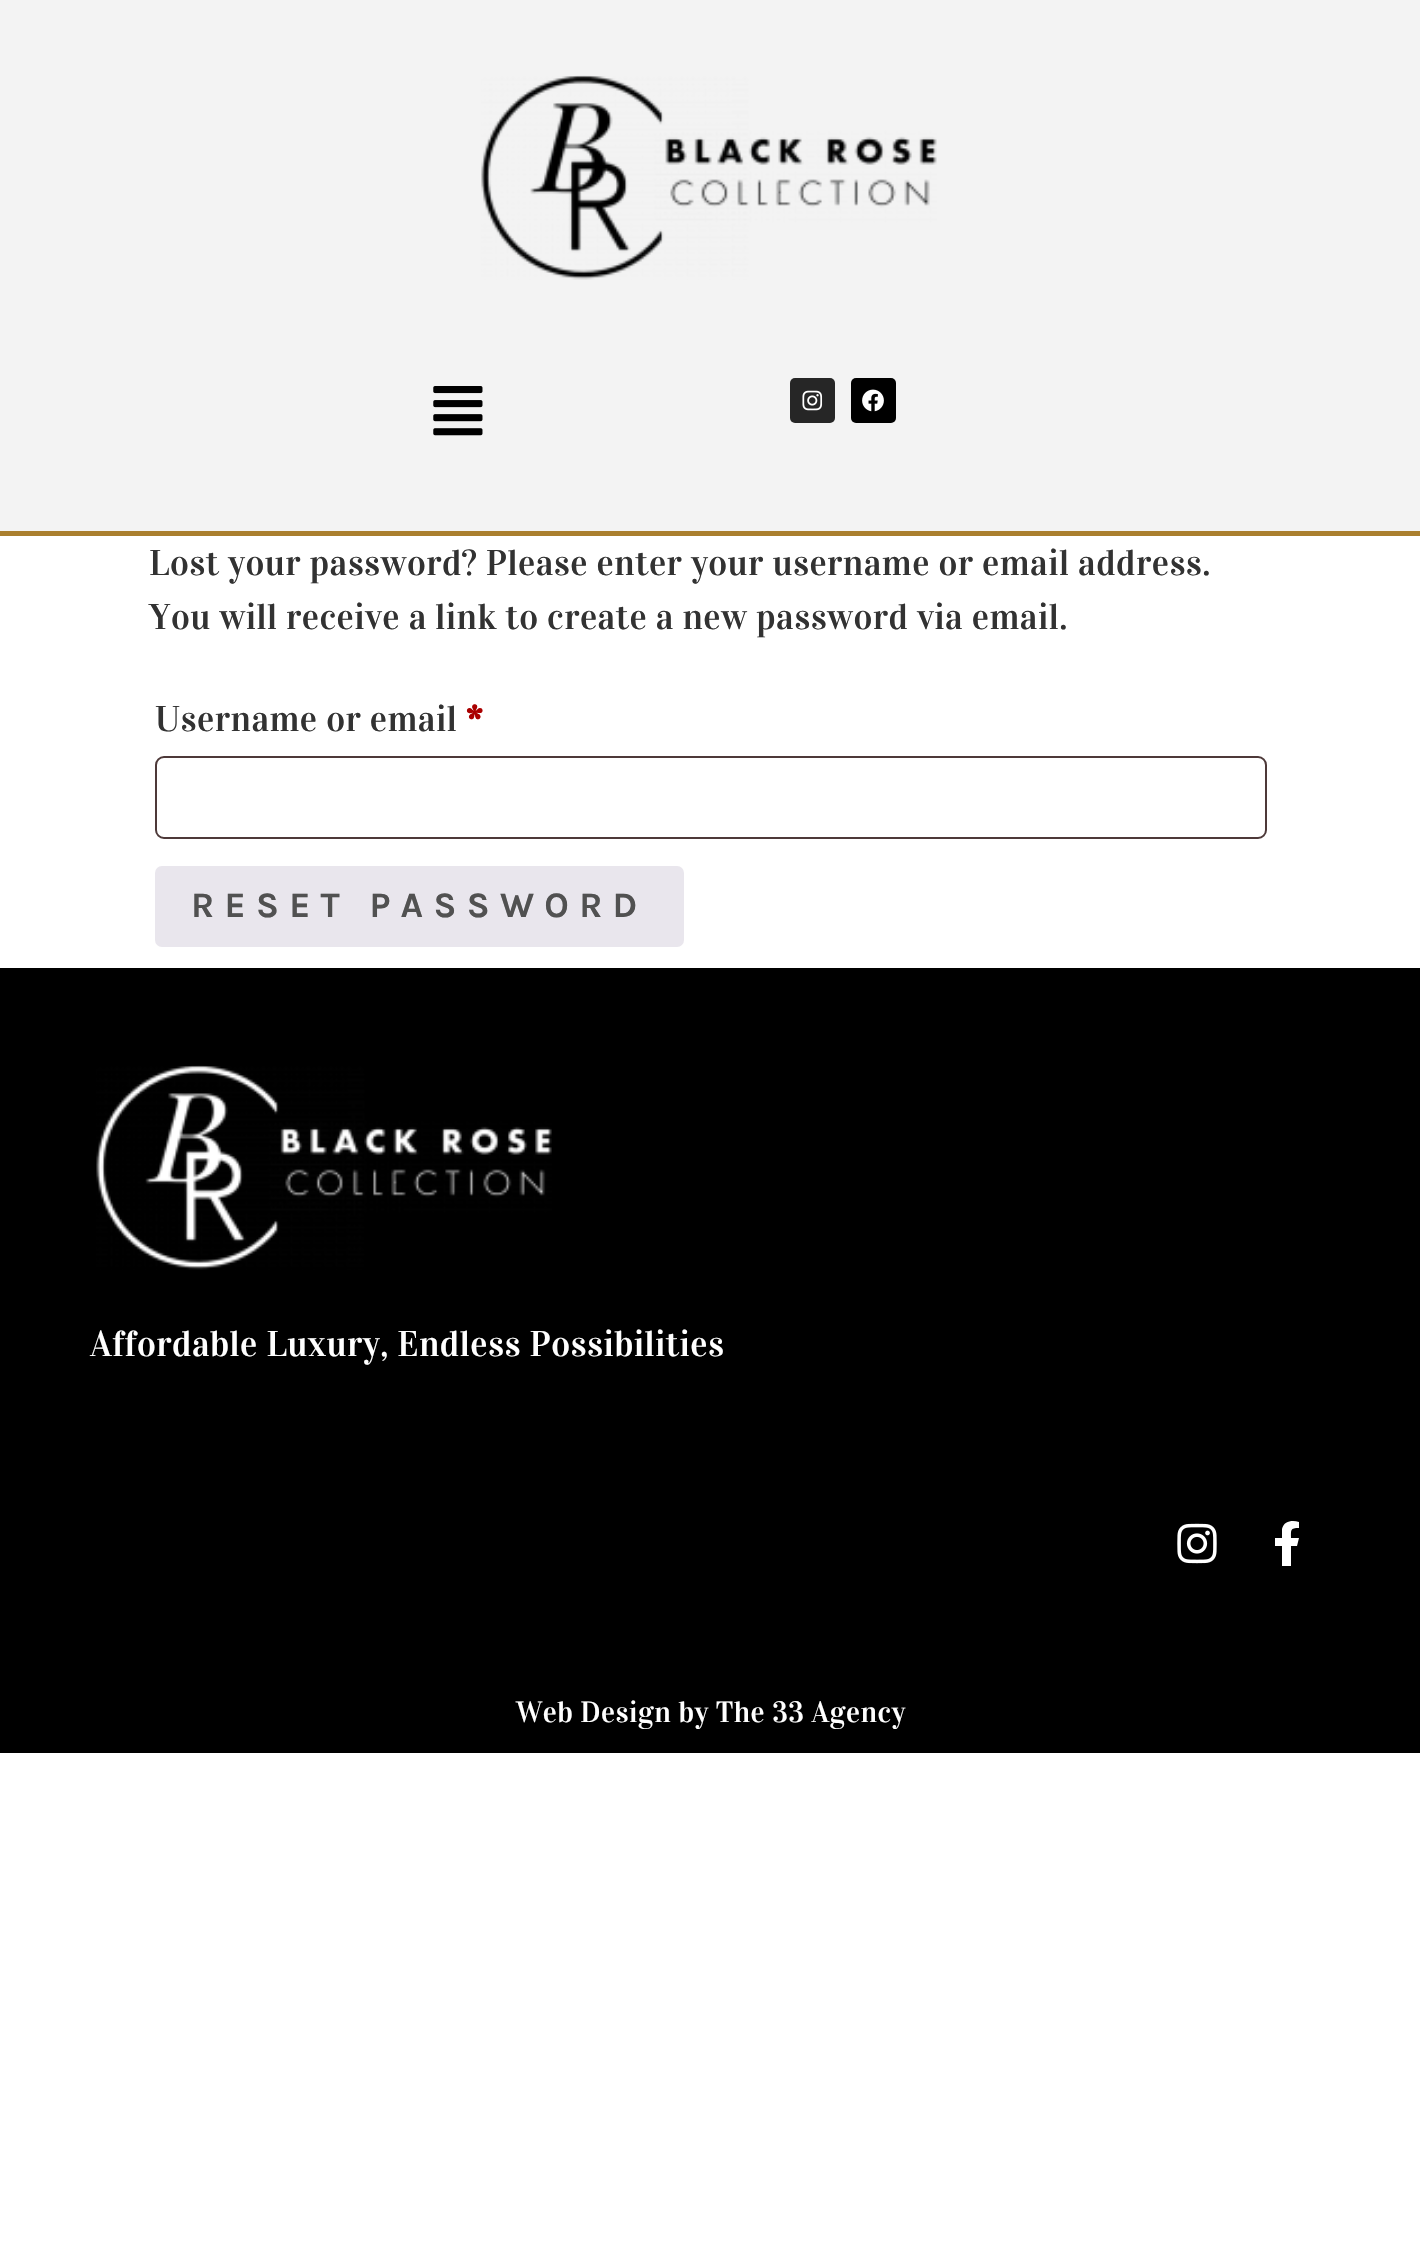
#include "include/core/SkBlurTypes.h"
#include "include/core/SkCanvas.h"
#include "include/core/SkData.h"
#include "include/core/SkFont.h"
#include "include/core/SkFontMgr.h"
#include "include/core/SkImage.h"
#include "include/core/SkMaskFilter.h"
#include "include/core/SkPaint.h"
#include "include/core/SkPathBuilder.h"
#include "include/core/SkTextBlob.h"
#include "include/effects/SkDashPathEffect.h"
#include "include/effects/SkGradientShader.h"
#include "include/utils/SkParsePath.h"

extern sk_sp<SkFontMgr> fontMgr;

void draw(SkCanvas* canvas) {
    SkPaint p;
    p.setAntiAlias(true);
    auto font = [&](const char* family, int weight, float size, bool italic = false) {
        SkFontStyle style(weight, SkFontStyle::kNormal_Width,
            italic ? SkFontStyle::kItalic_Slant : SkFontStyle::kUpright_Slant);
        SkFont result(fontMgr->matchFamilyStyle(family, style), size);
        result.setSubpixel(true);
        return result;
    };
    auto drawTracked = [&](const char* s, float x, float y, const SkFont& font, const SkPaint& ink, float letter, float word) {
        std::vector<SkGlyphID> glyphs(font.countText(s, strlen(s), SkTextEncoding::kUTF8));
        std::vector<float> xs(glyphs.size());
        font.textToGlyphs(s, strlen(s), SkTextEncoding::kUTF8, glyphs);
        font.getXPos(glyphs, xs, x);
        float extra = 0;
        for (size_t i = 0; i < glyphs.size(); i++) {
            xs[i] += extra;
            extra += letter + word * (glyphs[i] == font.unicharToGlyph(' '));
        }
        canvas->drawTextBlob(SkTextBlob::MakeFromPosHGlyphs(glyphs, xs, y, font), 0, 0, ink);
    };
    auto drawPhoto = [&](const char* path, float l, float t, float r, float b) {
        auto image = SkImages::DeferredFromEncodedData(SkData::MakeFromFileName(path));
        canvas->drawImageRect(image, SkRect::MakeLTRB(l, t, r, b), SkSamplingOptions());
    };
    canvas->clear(0xFFFFFFFF);
    p.setColor(0xFFF3F3F3);
    canvas->drawRect(SkRect::MakeLTRB(0, 0, 1420, 531), p);
    p.setColor(0xFFAA7F2E);
    canvas->drawRect(SkRect::MakeLTRB(0, 531, 1420, 536), p);
    drawPhoto("media/1.png", 481, 75, 937, 280);
    drawPhoto("media/2.png", 433, 386, 483, 436);
    p.setColor(0xFF262626);
    canvas->drawRoundRect(SkRect::MakeLTRB(790, 378, 835, 423), 5, 5, p);
    drawPhoto("media/3.png", 802, 390, 823, 411);
    p.setColor(0xFF000000);
    canvas->drawRoundRect(SkRect::MakeLTRB(851, 378, 896, 423), 5, 5, p);
    drawPhoto("media/4.png", 862, 389, 884, 412);
    auto font1 = font("Vidaloka", 400, 36);
    p.setColor(0xFF323232);
    {
        const struct { const char* s; float x, y; } items[] = {
            {"Lost your password? Please enter your username or email address.", 149, 575},
            {"You will receive a link to create a new password via email.", 149, 629},
            {"Username or email", 155, 731},
        };
        for (auto [s, x, y] : items) {
            drawTracked(s, x, y, font1, p, 0.45f, 0);
        }
    }
    auto font2 = font("Vidaloka", 700, 36);
    p.setColor(0xFFAA0000);
    drawTracked("*", 466, 731, font2, p, 0.45f, 0);
    p.setStyle(SkPaint::kStroke_Style);
    p.setStrokeWidth(2);
    p.setColor(0xFF4D3939);
    canvas->drawRoundRect(SkRect::MakeLTRB(156, 757, 1266, 838), 8, 8, p);
    p.setStyle(SkPaint::kFill_Style);
    p.setColor(0xFFE9E6ED);
    canvas->drawRoundRect(SkRect::MakeLTRB(155, 866, 684, 947), 7, 7, p);
    auto font3 = font("Karla", 700, 36);
    p.setColor(0xFF515151);
    drawTracked("RESET PASSWORD", 191, 917, font3, p, 10.3f, 0);
    p.setColor(0xFF000000);
    canvas->drawRect(SkRect::MakeLTRB(0, 968, 1420, 1753), p);
    drawPhoto("media/5.png", 96, 1065, 552, 1270);
    p.setColor(0xFFFFFFFF);
    drawTracked("Affordable Luxury, Endless Possibilities", 90, 1356, font1, p, 0.45f, 0);
    drawPhoto("media/6.png", 1177, 1523, 1217, 1564);
    canvas->drawPath(SkPathBuilder().moveTo(1297, 1546).lineTo(1299, 1538).lineTo(1291, 1538).cubicTo(1291, 1530, 1290, 1528, 1299, 1528).lineTo(1299, 1522).cubicTo(1292, 1520, 1284, 1521, 1282, 1529).lineTo(1282, 1538).lineTo(1275, 1538).lineTo(1275, 1546).lineTo(1282, 1546).lineTo(1282, 1566).lineTo(1291, 1566).lineTo(1291, 1546).close().detach(), p);
    auto font4 = font("Vidaloka", 400, 29.25f);
    drawTracked("Web Design by The 33 Agency", 516, 1722, font4, p, 0.45f, 0);
}
